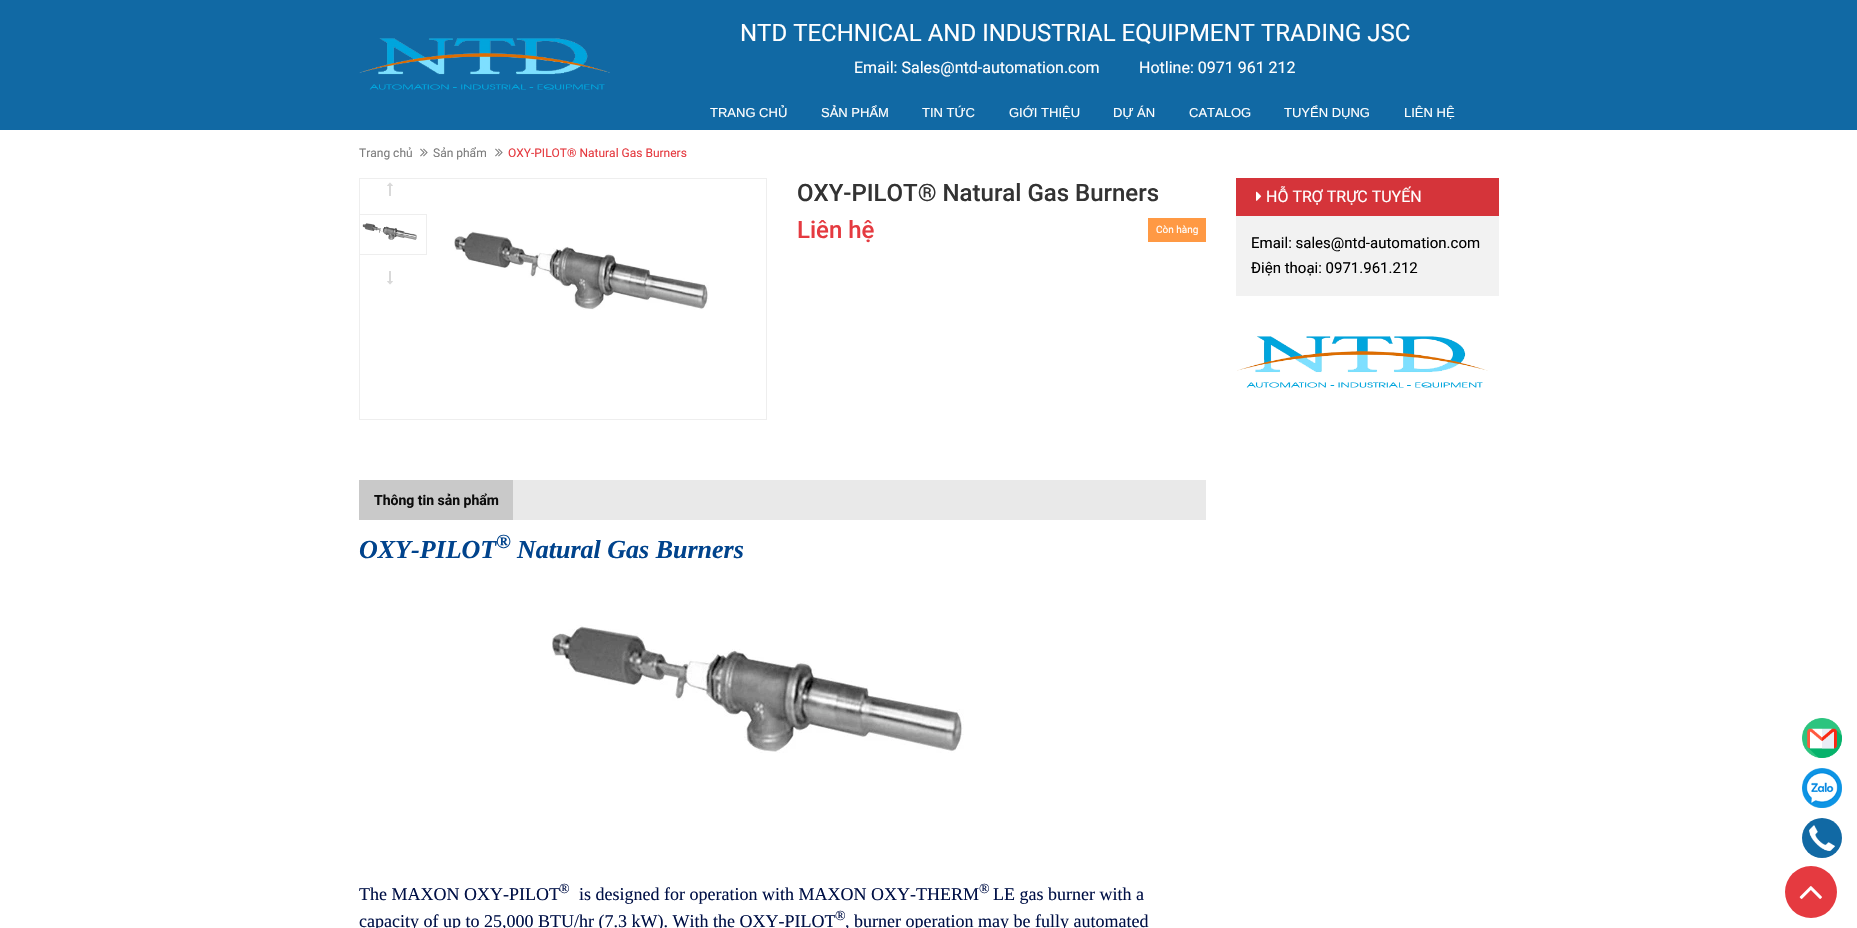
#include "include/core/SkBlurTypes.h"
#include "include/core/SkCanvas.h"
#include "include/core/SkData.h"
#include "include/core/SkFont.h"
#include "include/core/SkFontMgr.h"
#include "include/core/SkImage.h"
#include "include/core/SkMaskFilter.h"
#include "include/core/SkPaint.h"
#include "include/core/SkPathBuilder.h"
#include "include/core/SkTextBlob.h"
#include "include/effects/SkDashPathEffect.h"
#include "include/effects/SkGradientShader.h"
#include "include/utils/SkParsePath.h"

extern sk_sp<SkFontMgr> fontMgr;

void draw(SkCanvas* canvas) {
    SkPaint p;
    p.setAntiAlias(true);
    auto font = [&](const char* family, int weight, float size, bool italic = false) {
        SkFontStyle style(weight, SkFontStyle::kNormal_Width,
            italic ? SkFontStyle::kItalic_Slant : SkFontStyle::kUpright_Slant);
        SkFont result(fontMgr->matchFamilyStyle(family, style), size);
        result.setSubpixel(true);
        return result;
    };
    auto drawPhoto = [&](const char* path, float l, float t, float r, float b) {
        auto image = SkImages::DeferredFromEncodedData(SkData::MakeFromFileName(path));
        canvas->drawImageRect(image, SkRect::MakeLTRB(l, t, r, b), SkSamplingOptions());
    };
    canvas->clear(0xFFFFFFFF);
    p.setColor(0xFF1169A4);
    canvas->drawRect(SkRect::MakeLTRB(0, 0, 1857, 130), p);
    drawPhoto("media/1.png", 359, 38, 610, 90);
    auto font1 = font("Roboto", 400, 24);
    p.setColor(0xFFFFFFFF);
    canvas->drawString("NTD TECHNICAL AND INDUSTRIAL EQUIPMENT TRADING JSC", 740, 41, font1, p);
    auto font2 = font("Roboto", 400, 16);
    canvas->drawString("Email: Sales@ntd-automation.com", 854, 73, font2, p);
    canvas->drawString("Hotline: 0971 961 212", 1139, 73, font2, p);
    auto font3 = font("Liberation Sans", 400, 13);
    {
        const struct { const char* s; float x, y; } items[] = {
            {"TRANG CHỦ", 710, 117},
            {"SẢN PHẨM", 821, 117},
            {"TIN TỨC", 922, 117},
            {"GIỚI THIỆU", 1009, 117},
            {"DỰ ÁN", 1113, 117},
            {"CATALOG", 1189, 117},
            {"TUYỂN DỤNG", 1284, 117},
            {"LIÊN HỆ", 1404, 117},
        };
        for (auto [s, x, y] : items) {
            canvas->drawString(s, x, y, font3, p);
        }
    }
    auto font4 = font("Roboto", 400, 12);
    p.setColor(0xFF7C7C7C);
    canvas->drawString("Trang chủ", 359, 157, font4, p);
    drawPhoto("media/2.png", 420, 148, 428, 157);
    canvas->drawString("Sản phẩm", 433, 157, font4, p);
    drawPhoto("media/2.png", 495, 148, 503, 157);
    p.setColor(0xFFE53A40);
    canvas->drawString("OXY-PILOT® Natural Gas Burners", 508, 157, font4, p);
    p.setStyle(SkPaint::kStroke_Style);
    p.setStrokeWidth(1);
    p.setColor(0xFFEEEEEE);
    canvas->drawRect(SkRect::MakeLTRB(359.5f, 178.5f, 766.5f, 419.5f), p);
    drawPhoto("media/3.png", 387, 182, 393, 196);
    drawPhoto("media/4.png", 387, 271, 393, 285);
    p.setStyle(SkPaint::kFill_Style);
    {
        const struct { float l, t, r, b; SkColor color; } items[] = {
            {360, 214, 427, 215, 0xFFEEEEEE},
            {426, 214, 427, 255, 0xFFEEEEEE},
            {360, 254, 427, 255, 0xFFEEEEEE},
        };
        for (auto [l, t, r, b, color] : items) {
            p.setColor(color);
            canvas->drawRect(SkRect::MakeLTRB(l, t, r, b), p);
        }
    }
    drawPhoto("media/5.png", 362, 223, 417, 240);
    drawPhoto("media/6.png", 454, 231, 709, 310);
    auto font5 = font("Roboto", 500, 24);
    p.setColor(0xFF333333);
    canvas->drawString("OXY-PILOT® Natural Gas Burners", 797, 201, font5, p);
    p.setColor(0xFFE53A40);
    canvas->drawString("Liên hệ", 797, 238, font5, p);
    p.setColor(0xFFFF9944);
    canvas->drawRect(SkRect::MakeLTRB(1148, 218, 1206, 242), p);
    auto font6 = font("Roboto", 400, 10);
    p.setColor(0xFFFFFFFF);
    canvas->drawString("Còn hàng", 1156, 233, font6, p);
    p.setColor(0xFFE9E9E9);
    canvas->drawRect(SkRect::MakeLTRB(513, 480, 1206, 520), p);
    p.setColor(0xFFC9C9C9);
    canvas->drawRect(SkRect::MakeLTRB(359, 480, 513, 520), p);
    auto font7 = font("Roboto", 700, 14);
    p.setColor(0xFF0C0C0C);
    canvas->drawString("Thông tin sản phẩm", 374, 505, font7, p);
    auto font8 = font("Liberation Serif", 700, 26, true);
    p.setColor(0xFF00438C);
    canvas->drawString("OXY-PILOT", 359, 558, font8, p);
    auto font9 = font("Liberation Serif", 700, 20, true);
    canvas->drawString("®", 496, 548, font9, p);
    canvas->drawString("Natural Gas Burners", 517, 558, font8, p);
    drawPhoto("media/7.png", 552, 625, 964, 753);
    auto font10 = font("Liberation Serif", 400, 18);
    p.setColor(0xFF001046);
    canvas->drawString("The MAXON OXY-PILOT", 359, 900, font10, p);
    auto font11 = font("Liberation Serif", 400, 14);
    canvas->drawString("®", 559, 893, font11, p);
    canvas->drawString("is designed for operation with MAXON OXY-THERM", 579, 900, font10, p);
    canvas->drawString("®", 979, 893, font11, p);
    canvas->drawString("LE gas burner with a", 993, 900, font10, p);
    canvas->drawString("capacity of up to 25,000 BTU/hr (7.3 kW). With the OXY-PILOT", 359, 927, font10, p);
    canvas->drawString("®", 835, 920, font11, p);
    canvas->drawString(", burner operation may be fully automated", 845, 927, font10, p);
    p.setColor(0xFFD5343A);
    canvas->drawRect(SkRect::MakeLTRB(1236, 178, 1499, 216), p);
    drawPhoto("media/8.png", 1256, 191, 1262, 201);
    p.setColor(0xFFFFFFFF);
    canvas->drawString("HỖ TRỢ TRỰC TUYẾN", 1266, 202, font2, p);
    p.setColor(0xFFF2F2F2);
    canvas->drawRect(SkRect::MakeLTRB(1236, 216, 1499, 296), p);
    auto font12 = font("Roboto", 400, 15);
    p.setColor(0xFF000000);
    canvas->drawString("Email: sales@ntd-automation.com", 1251, 248, font12, p);
    canvas->drawString("Điện thoại: 0971.961.212", 1251, 273, font12, p);
    drawPhoto("media/9.png", 1237, 336, 1488, 388);
    drawPhoto("media/10.png", 1802, 718, 1842, 758);
    drawPhoto("media/11.png", 1802, 768, 1842, 808);
    p.setColor(0xFF1169A4);
    canvas->drawCircle(1822, 838, 20, p);
    drawPhoto("media/12.png", 1809, 825, 1835, 851);
    p.setColor(0xFFE53A40);
    canvas->drawCircle(1811, 892, 26, p);
    drawPhoto("media/13.png", 1799, 886, 1822, 899);
}
